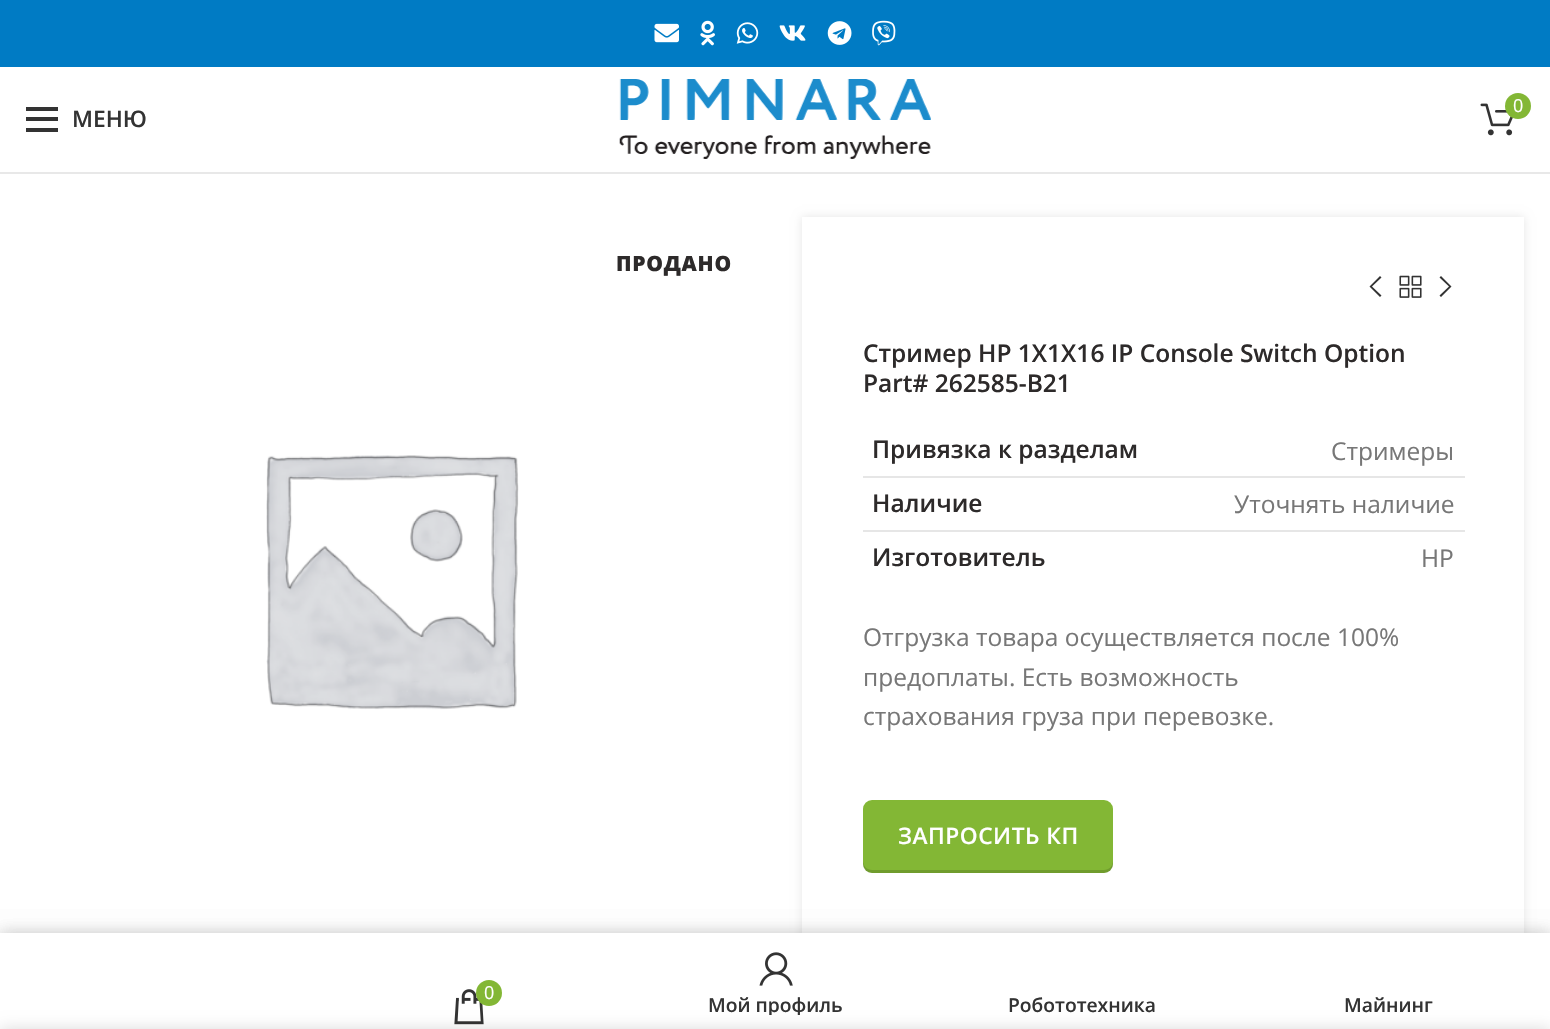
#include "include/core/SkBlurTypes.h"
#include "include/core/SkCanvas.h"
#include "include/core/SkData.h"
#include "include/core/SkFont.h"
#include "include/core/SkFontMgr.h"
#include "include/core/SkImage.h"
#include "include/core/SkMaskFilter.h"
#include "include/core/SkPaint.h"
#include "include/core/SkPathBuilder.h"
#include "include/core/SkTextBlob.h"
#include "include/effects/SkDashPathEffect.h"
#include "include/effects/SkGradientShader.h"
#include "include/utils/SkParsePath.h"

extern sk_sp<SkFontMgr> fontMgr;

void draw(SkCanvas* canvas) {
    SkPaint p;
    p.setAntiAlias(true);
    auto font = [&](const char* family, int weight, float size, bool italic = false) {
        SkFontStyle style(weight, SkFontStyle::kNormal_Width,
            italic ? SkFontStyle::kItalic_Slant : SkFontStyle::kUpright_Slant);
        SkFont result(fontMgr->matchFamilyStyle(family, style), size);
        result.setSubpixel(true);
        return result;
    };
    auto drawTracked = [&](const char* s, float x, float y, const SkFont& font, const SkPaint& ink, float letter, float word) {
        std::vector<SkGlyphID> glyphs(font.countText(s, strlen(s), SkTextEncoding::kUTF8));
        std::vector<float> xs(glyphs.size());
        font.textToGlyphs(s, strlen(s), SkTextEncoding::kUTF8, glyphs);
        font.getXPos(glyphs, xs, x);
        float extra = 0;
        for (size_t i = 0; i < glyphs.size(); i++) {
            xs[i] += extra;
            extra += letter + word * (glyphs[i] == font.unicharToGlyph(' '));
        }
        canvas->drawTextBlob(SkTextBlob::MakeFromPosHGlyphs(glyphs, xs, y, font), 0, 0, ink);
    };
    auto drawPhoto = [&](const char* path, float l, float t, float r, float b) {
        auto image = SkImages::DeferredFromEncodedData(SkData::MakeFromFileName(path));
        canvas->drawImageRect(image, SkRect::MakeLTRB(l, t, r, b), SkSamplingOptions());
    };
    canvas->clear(0xFFFFFFFF);
    p.setColor(0xFF007BC4);
    canvas->drawRect(SkRect::MakeLTRB(0, 0, 1550, 67), p);
    drawPhoto("media/1.png", 654, 23, 679, 43);
    drawPhoto("media/2.png", 700, 20, 715, 46);
    drawPhoto("media/3.png", 736, 22, 759, 44);
    drawPhoto("media/4.png", 779, 25, 806, 41);
    drawPhoto("media/5.png", 827, 21, 852, 45);
    drawPhoto("media/6.png", 872, 20, 896, 46);
    p.setColor(0xFFE8E8E8);
    canvas->drawRect(SkRect::MakeLTRB(0, 172, 1550, 174), p);
    drawPhoto("media/7.png", 619, 79, 931, 159);
    drawPhoto("media/8.png", 1480, 103, 1513, 136);
    p.setColor(0xFF83B735);
    canvas->drawCircle(1518, 106, 13, p);
    auto font1 = font("Open Sans", 400, 18);
    p.setColor(0xFFFFFFFF);
    canvas->drawString("0", 1513, 112, font1, p);
    {
        const struct { float l, t, r, b; SkColor color; } items[] = {
            {26, 117, 58, 121, 0xFF333333},
            {26, 107, 58, 111, 0xFF333333},
            {26, 128, 58, 132, 0xFF333333},
        };
        for (auto [l, t, r, b, color] : items) {
            p.setColor(color);
            canvas->drawRect(SkRect::MakeLTRB(l, t, r, b), p);
        }
    }
    auto font2 = font("Open Sans", 600, 22.75f);
    canvas->drawString("МЕНЮ", 72, 127, font2, p);
    auto font3 = font("Open Sans", 800, 21);
    p.setColor(0xFF2D2A2A);
    drawTracked("ПРОДАНО", 616, 271, font3, p, 0.75f, 0);
    drawPhoto("media/9.png", 266, 455, 519, 710);
    canvas->save();
    canvas->clipPath(SkPathBuilder(SkPathFillType::kEvenOdd).moveTo(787, 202).lineTo(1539, 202).lineTo(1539, 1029).lineTo(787, 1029).close().moveTo(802, 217).lineTo(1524, 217).lineTo(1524, 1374).lineTo(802, 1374).close().detach(), true);
    p.setColor(0x1A000000);
    p.setMaskFilter(SkMaskFilter::MakeBlur(kNormal_SkBlurStyle, 4.5f));
    canvas->drawRect(SkRect::MakeLTRB(802, 217, 1524, 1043), p);
    p.setMaskFilter(nullptr);
    canvas->restore();
    p.setColor(0xFF333333);
    canvas->drawPath(SkPathBuilder().moveTo(1381.5f, 277.5f).lineTo(1372, 286.5f).lineTo(1381.5f, 295.5f).lineTo(1380, 297).lineTo(1369.5f, 286.5f).lineTo(1380, 276).close().detach(), p);
    drawPhoto("media/10.png", 1399, 275, 1422, 298);
    canvas->drawPath(SkPathBuilder().moveTo(1441, 276).lineTo(1451.5f, 286.5f).lineTo(1441, 297).lineTo(1439.5f, 295.5f).lineTo(1449, 286.5f).lineTo(1439.5f, 277.5f).close().detach(), p);
    auto font4 = font("Open Sans", 600, 24.5f);
    p.setColor(0xFF2D2A2A);
    {
        const struct { const char* s; float x, y; } items[] = {
            {"Стример HP 1X1X16 IP Console Switch Option", 863, 362},
            {"Part# 262585-B21", 863, 392},
            {"Привязка к разделам", 872, 458},
        };
        for (auto [s, x, y] : items) {
            canvas->drawString(s, x, y, font4, p);
        }
    }
    p.setColor(0xFFE6E6E6);
    canvas->drawRect(SkRect::MakeLTRB(863, 476, 1465, 478), p);
    auto font5 = font("Open Sans", 400, 24.5f);
    p.setColor(0xFF777777);
    canvas->drawString("Стримеры", 1331, 460, font5, p);
    p.setColor(0xFF2D2A2A);
    canvas->drawString("Наличие", 872, 512, font4, p);
    p.setColor(0xFFE6E6E6);
    canvas->drawRect(SkRect::MakeLTRB(863, 530, 1465, 532), p);
    p.setColor(0xFF777777);
    canvas->drawString("Уточнять наличие", 1234, 513, font5, p);
    p.setColor(0xFF2D2A2A);
    canvas->drawString("Изготовитель", 872, 566, font4, p);
    p.setColor(0xFF777777);
    {
        const struct { const char* s; float x, y; } items[] = {
            {"HP", 1421, 567},
            {"Отгрузка товара осуществляется после 100%", 863, 646},
            {"предоплаты. Есть возможность", 863, 686},
            {"страхования груза при перевозке.", 863, 725},
        };
        for (auto [s, x, y] : items) {
            canvas->drawString(s, x, y, font5, p);
        }
    }
    p.setColor(0xFF83B735);
    canvas->drawRoundRect(SkRect::MakeLTRB(863, 800, 1113, 873), 9, 9, p);
    p.setColor(0x26000000);
    canvas->drawPath(SkPathBuilder().moveTo(863, 861).lineTo(863, 864).cubicTo(863, 869, 867, 873, 872, 873).lineTo(1104, 873).cubicTo(1109, 873, 1113, 869, 1113, 864).lineTo(1113, 861).cubicTo(1113, 866, 1109, 870, 1104, 870).lineTo(872, 870).cubicTo(867, 870, 863, 866, 863, 861).close().detach(), p);
    p.setColor(0xFFFFFFFF);
    drawTracked("ЗАПРОСИТЬ КП", 898, 844, font2, p, 0.5f, 0);
    p.setColor(0x1F000000);
    p.setMaskFilter(SkMaskFilter::MakeBlur(kNormal_SkBlurStyle, 8));
    canvas->drawRect(SkRect::MakeLTRB(0, 933, 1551, 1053), p);
    p.setMaskFilter(nullptr);
    p.setMaskFilter(SkMaskFilter::MakeBlur(kNormal_SkBlurStyle, 8));
    canvas->drawRect(SkRect::MakeLTRB(0, 933, 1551, 1029), p);
    p.setMaskFilter(nullptr);
    p.setColor(0xFFFFFFFF);
    canvas->drawRect(SkRect::MakeLTRB(0, 933, 1550, 1029), p);
    drawPhoto("media/11.png", 454, 989, 484, 1025);
    p.setColor(0xFF83B735);
    canvas->drawCircle(489, 993, 13, p);
    p.setColor(0xFFFFFFFF);
    canvas->drawString("0", 484, 999, font1, p);
    drawPhoto("media/12.png", 759, 952, 793, 986);
    canvas->save();
    canvas->clipRect(SkRect::MakeLTRB(639, 992, 912, 1015));
    auto font6 = font("Open Sans", 600, 19.25f);
    p.setColor(0xFF333333);
    canvas->drawString("Мой профиль", 708, 1012, font6, p);
    canvas->restore();
    canvas->drawString("Робототехника", 1008, 1012, font6, p);
    canvas->drawString("Майнинг", 1344, 1012, font6, p);
    p.setColor(0x24000000);
    p.setMaskFilter(SkMaskFilter::MakeBlur(kNormal_SkBlurStyle, 8));
    canvas->drawRect(SkRect::MakeLTRB(0, 1029, 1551, 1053), p);
    p.setMaskFilter(nullptr);
}
